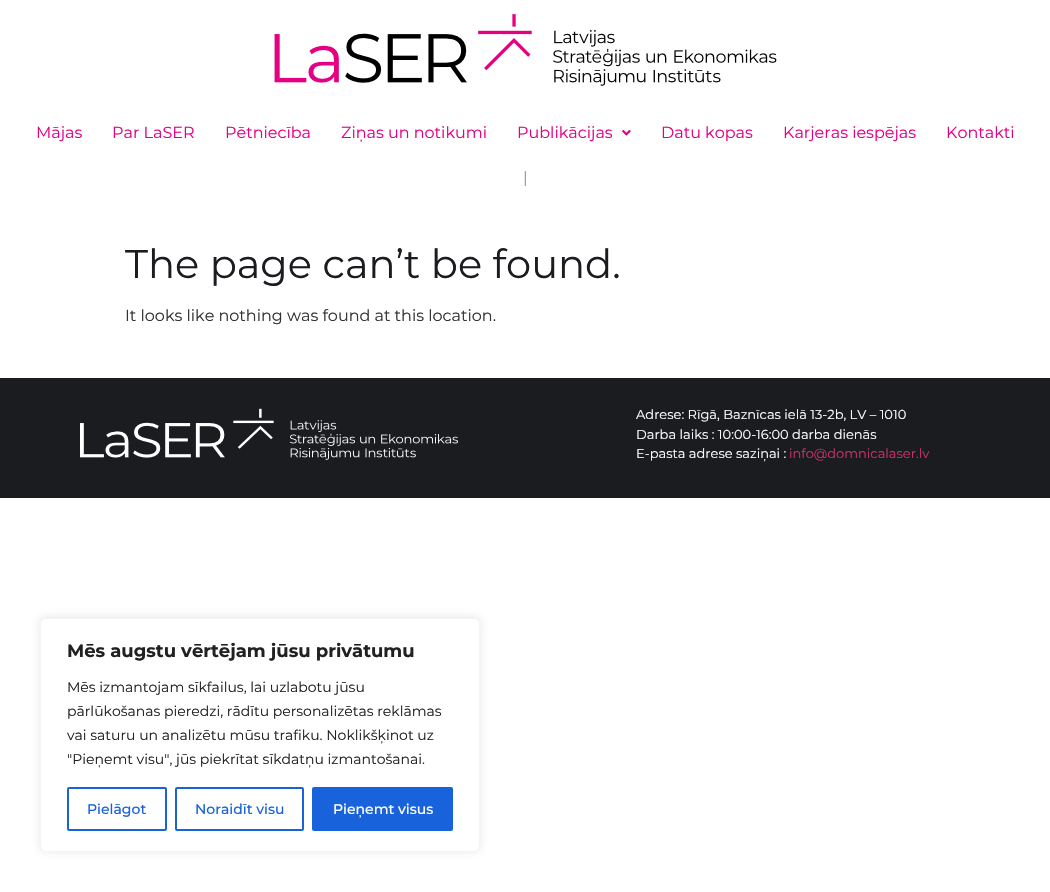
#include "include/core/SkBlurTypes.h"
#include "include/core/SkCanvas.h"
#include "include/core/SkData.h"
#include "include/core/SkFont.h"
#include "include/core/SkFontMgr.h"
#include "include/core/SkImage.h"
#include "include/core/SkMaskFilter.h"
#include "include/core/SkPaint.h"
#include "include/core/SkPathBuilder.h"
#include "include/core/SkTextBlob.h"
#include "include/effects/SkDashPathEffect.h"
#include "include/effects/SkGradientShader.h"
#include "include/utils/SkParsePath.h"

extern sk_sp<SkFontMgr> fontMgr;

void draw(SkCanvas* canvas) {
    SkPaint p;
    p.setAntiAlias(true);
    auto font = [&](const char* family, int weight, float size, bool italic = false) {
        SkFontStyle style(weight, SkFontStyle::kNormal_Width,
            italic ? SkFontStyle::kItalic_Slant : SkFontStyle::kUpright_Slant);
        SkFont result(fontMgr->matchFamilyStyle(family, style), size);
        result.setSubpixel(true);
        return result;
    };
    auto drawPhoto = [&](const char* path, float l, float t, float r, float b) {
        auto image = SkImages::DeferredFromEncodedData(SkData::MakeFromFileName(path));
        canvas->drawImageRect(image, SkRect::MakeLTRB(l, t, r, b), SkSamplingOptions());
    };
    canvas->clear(0xFFFFFFFF);
    drawPhoto("media/1.png", 274, 14, 777, 86);
    auto font1 = font("Montserrat", 400, 16);
    p.setColor(0xFFE50083);
    {
        const struct { const char* s; float x, y; } items[] = {
            {"Mājas", 36, 138},
            {"Par LaSER", 112, 138},
            {"Pētniecība", 225, 138},
            {"Ziņas un notikumi", 341, 138},
            {"Publikācijas", 517, 138},
        };
        for (auto [s, x, y] : items) {
            canvas->drawString(s, x, y, font1, p);
        }
    }
    drawPhoto("media/2.png", 622, 130, 631, 136);
    {
        const struct { const char* s; float x, y; } items[] = {
            {"Datu kopas", 661, 138},
            {"Karjeras iespējas", 783, 138},
            {"Kontakti", 946, 138},
        };
        for (auto [s, x, y] : items) {
            canvas->drawString(s, x, y, font1, p);
        }
    }
    p.setColor(0xFF989797);
    canvas->drawString("|", 523, 183, font1, p);
    auto font2 = font("Montserrat", 400, 40);
    p.setColor(0xFF1B1C20);
    canvas->drawString("The page can’t be found.", 125, 278, font2, p);
    p.setColor(0xFF333333);
    canvas->drawString("It looks like nothing was found at this location.", 125, 321, font1, p);
    p.setColor(0xFF1B1C20);
    canvas->drawRect(SkRect::MakeLTRB(0, 378, 1050, 498), p);
    drawPhoto("media/3.png", 80, 408, 458, 460);
    auto font3 = font("Montserrat", 400, 13);
    p.setColor(0xFFFFFFFF);
    {
        const struct { const char* s; float x, y; } items[] = {
            {"Adrese: Rīgā, Baznīcas ielā 13-2b, LV – 1010", 636, 419},
            {"Darba laiks : 10:00-16:00 darba dienās", 636, 439},
            {"E-pasta adrese saziņai :", 636, 458},
        };
        for (auto [s, x, y] : items) {
            canvas->drawString(s, x, y, font3, p);
        }
    }
    p.setColor(0xFFCC3366);
    canvas->drawString("info@domnicalaser.lv", 789, 458, font3, p);
    p.setColor(0x4DACABAB);
    p.setMaskFilter(SkMaskFilter::MakeBlur(kNormal_SkBlurStyle, 5));
    canvas->drawRoundRect(SkRect::MakeLTRB(40, 617, 480, 851), 6, 6, p);
    p.setMaskFilter(nullptr);
    p.setColor(0xFFFFFFFF);
    canvas->drawRoundRect(SkRect::MakeLTRB(40.5f, 618.5f, 479.5f, 851.5f), 5.5f, 5.5f, p);
    p.setStyle(SkPaint::kStroke_Style);
    p.setStrokeWidth(1);
    p.setColor(0xFFF4F4F4);
    canvas->drawRoundRect(SkRect::MakeLTRB(40.5f, 618.5f, 479.5f, 851.5f), 5.5f, 5.5f, p);
    auto font4 = font("Montserrat", 700, 18);
    p.setStyle(SkPaint::kFill_Style);
    p.setColor(0xFF212121);
    canvas->drawString("Mēs augstu vērtējam jūsu privātumu", 67, 657, font4, p);
    auto font5 = font("Montserrat", 400, 14);
    {
        const struct { const char* s; float x, y; } items[] = {
            {"Mēs izmantojam sīkfailus, lai uzlabotu jūsu", 67, 692},
            {"pārlūkošanas pieredzi, rādītu personalizētas reklāmas", 67, 716},
            {"vai saturu un analizētu mūsu trafiku. Noklikšķinot uz", 67, 740},
            {"\"Pieņemt visu\", jūs piekrītat sīkdatņu izmantošanai.", 67, 764},
        };
        for (auto [s, x, y] : items) {
            canvas->drawString(s, x, y, font5, p);
        }
    }
    p.setStyle(SkPaint::kStroke_Style);
    p.setStrokeWidth(2);
    p.setColor(0xFF1863DC);
    canvas->drawRoundRect(SkRect::MakeLTRB(68, 788, 166, 830), 1, 1, p);
    auto font6 = font("Montserrat", 500, 14);
    p.setStyle(SkPaint::kFill_Style);
    canvas->drawString("Pielāgot", 87, 814, font6, p);
    p.setStyle(SkPaint::kStroke_Style);
    canvas->drawRoundRect(SkRect::MakeLTRB(176, 788, 303, 830), 1, 1, p);
    p.setStyle(SkPaint::kFill_Style);
    canvas->drawString("Noraidīt visu", 195, 814, font6, p);
    canvas->drawRoundRect(SkRect::MakeLTRB(313, 788, 452, 830), 1, 1, p);
    p.setStyle(SkPaint::kStroke_Style);
    canvas->drawRoundRect(SkRect::MakeLTRB(313, 788, 452, 830), 1, 1, p);
    p.setStyle(SkPaint::kFill_Style);
    p.setColor(0xFFFFFFFF);
    canvas->drawString("Pieņemt visus", 333, 814, font6, p);
}
